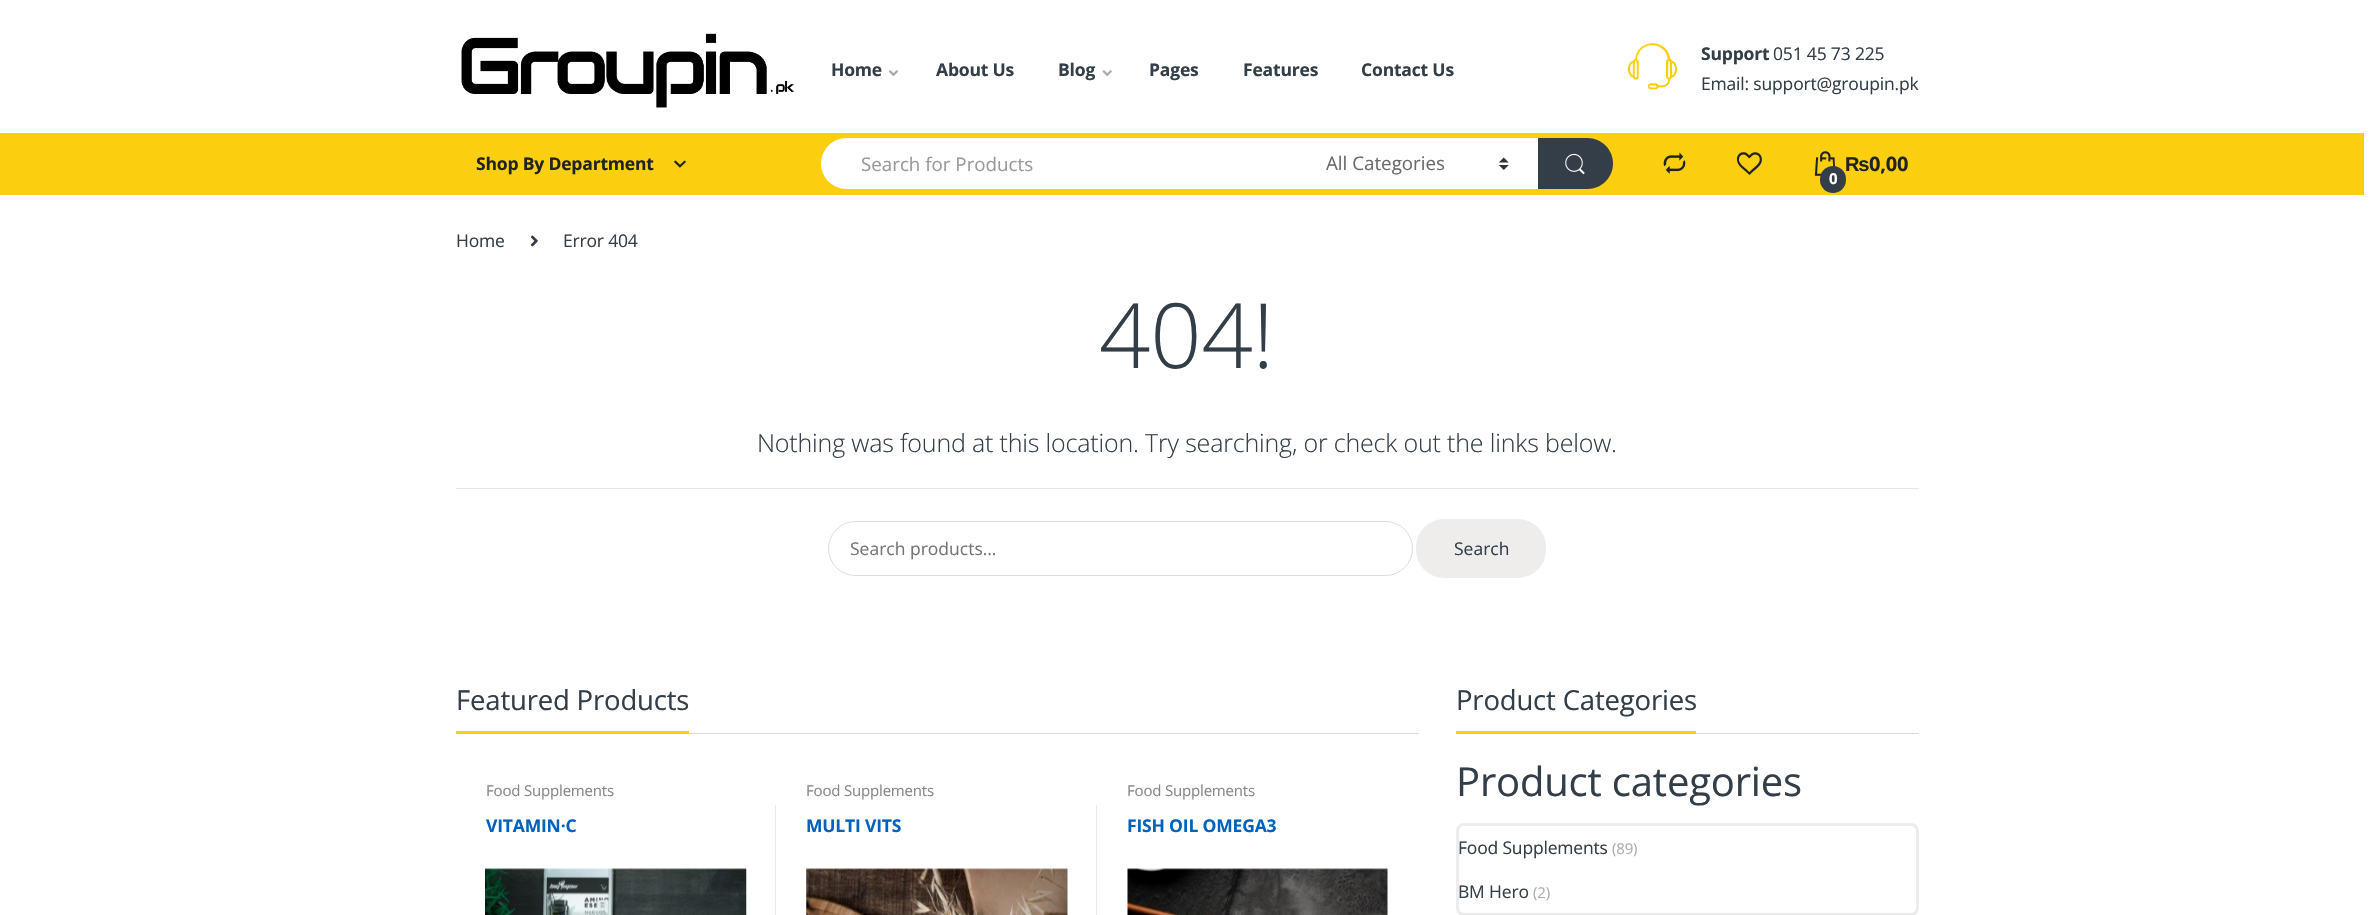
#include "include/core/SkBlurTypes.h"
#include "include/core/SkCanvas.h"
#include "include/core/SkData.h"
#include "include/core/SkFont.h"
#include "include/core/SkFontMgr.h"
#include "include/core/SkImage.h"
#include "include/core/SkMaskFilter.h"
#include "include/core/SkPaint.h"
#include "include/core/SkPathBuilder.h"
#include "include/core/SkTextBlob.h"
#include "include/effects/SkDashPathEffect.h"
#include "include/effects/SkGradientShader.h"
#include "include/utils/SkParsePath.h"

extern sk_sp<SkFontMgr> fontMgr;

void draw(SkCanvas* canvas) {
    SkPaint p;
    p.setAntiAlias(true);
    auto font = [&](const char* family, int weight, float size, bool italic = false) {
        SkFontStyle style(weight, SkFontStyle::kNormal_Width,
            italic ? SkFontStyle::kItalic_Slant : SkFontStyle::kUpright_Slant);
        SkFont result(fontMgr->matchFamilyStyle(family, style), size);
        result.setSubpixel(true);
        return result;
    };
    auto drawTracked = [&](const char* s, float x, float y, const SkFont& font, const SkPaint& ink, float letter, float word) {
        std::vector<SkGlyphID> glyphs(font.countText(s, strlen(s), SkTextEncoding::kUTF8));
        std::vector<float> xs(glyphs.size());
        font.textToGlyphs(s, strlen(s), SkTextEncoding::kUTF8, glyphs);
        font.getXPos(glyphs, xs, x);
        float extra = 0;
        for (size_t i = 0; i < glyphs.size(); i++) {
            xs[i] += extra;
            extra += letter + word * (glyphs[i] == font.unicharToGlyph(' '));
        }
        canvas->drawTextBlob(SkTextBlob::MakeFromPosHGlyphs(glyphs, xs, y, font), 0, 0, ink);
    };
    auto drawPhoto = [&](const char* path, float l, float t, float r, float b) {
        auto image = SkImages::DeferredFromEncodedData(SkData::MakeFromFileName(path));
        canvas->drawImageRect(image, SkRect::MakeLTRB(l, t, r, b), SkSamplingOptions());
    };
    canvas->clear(0xFFFFFFFF);
    drawPhoto("media/1.png", 461, 33, 794, 108);
    auto font1 = font("Open Sans", 700, 17.5f);
    p.setColor(0xFF333E48);
    drawTracked("Home", 831, 76, font1, p, -0.18f, 0);
    drawPhoto("media/2.png", 888, 70, 899, 76);
    drawTracked("About Us", 936, 76, font1, p, -0.18f, 0);
    drawTracked("Blog", 1058, 76, font1, p, -0.18f, 0);
    drawPhoto("media/3.png", 1102, 70, 1112, 76);
    {
        const struct { const char* s; float x, y; } items[] = {
            {"Pages", 1149, 76},
            {"Features", 1243, 76},
            {"Contact Us", 1361, 76},
        };
        for (auto [s, x, y] : items) {
            drawTracked(s, x, y, font1, p, -0.18f, 0);
        }
    }
    drawPhoto("media/4.png", 1627, 43, 1678, 90);
    drawTracked("Support", 1701, 60, font1, p, -0.18f, 0);
    auto font2 = font("Open Sans", 400, 17.5f);
    drawTracked("051 45 73 225", 1773, 60, font2, p, -0.18f, 0);
    drawTracked("Email: support@groupin.pk", 1701, 90, font2, p, -0.18f, 0);
    p.setColor(0xFFFBCE10);
    canvas->drawRect(SkRect::MakeLTRB(0, 133, 2364, 195), p);
    p.setColor(0xFF222222);
    drawTracked("Shop By Department", 476, 170, font1, p, -0.18f, 0);
    drawPhoto("media/5.png", 674, 160, 686, 168);
    p.setColor(0xFFFFFFFF);
    canvas->drawPath(SkPathBuilder().moveTo(846.5f, 138).lineTo(1296, 138).lineTo(1296, 189).lineTo(846.5f, 189).cubicTo(832.5f, 189, 821, 177.5f, 821, 163.5f).cubicTo(821, 149.5f, 832.5f, 138, 846.5f, 138).close().detach(), p);
    auto font3 = font("Open Sans", 400, 18.75f);
    p.setColor(0xFF999999);
    canvas->drawString("Search for Products", 861, 171, font3, p);
    p.setColor(0xFFFFFFFF);
    canvas->drawRect(SkRect::MakeLTRB(1296, 138, 1538, 189), p);
    drawPhoto("media/6.png", 1498, 157, 1509, 170);
    p.setColor(0xFF6B6B6B);
    canvas->drawString("All Categories", 1326, 170, font3, p);
    p.setColor(0xFF333E48);
    canvas->drawPath(SkPathBuilder().moveTo(1538, 138).lineTo(1587.5f, 138).cubicTo(1601.5f, 138, 1613, 149.5f, 1613, 163.5f).cubicTo(1613, 177.5f, 1601.5f, 189, 1587.5f, 189).lineTo(1538, 189).close().detach(), p);
    drawPhoto("media/7.png", 1565, 153, 1585, 175);
    drawPhoto("media/8.png", 1663, 152, 1686, 174);
    drawPhoto("media/9.png", 1736, 152, 1762, 175);
    drawPhoto("media/10.png", 1814, 151, 1835, 176);
    auto font4 = font("Liberation Sans", 700, 20);
    p.setColor(0xFF222222);
    drawTracked("₨", 1845, 171, font4, p, -0.18f, 0);
    auto font5 = font("Open Sans", 700, 20);
    drawTracked("0,00", 1869, 171, font5, p, -0.18f, 0);
    p.setColor(0xFF333E48);
    canvas->drawRoundRect(SkRect::MakeLTRB(1820, 166, 1846, 193), 13, 13, p);
    auto font6 = font("Open Sans", 700, 15);
    p.setColor(0xFFFFFFFF);
    drawTracked("0", 1829, 184, font6, p, -0.18f, 0);
    p.setColor(0xFF333E48);
    drawTracked("Home", 456, 247, font2, p, -0.18f, 0);
    drawPhoto("media/11.png", 530, 235, 538, 247);
    drawTracked("Error 404", 563, 247, font2, p, -0.18f, 0);
    auto font7 = font("Open Sans", 300, 90);
    drawTracked("404!", 1099, 368, font7, p, -0.18f, 0);
    auto font8 = font("Open Sans", 300, 25);
    drawTracked("Nothing was found at this location. Try searching, or check out the links below.", 757, 452, font8, p, -0.18f, 0);
    p.setColor(0xFFE6E6E6);
    canvas->drawRect(SkRect::MakeLTRB(456, 488, 1919, 489), p);
    p.setStyle(SkPaint::kStroke_Style);
    p.setStrokeWidth(1);
    p.setColor(0xFFDDDDDD);
    canvas->drawRoundRect(SkRect::MakeLTRB(828.5f, 521.5f, 1412.5f, 575.5f), 27, 27, p);
    p.setStyle(SkPaint::kFill_Style);
    p.setColor(0xFF757575);
    canvas->drawString("Search products…", 850, 555, font2, p);
    p.setColor(0xFFEFECEC);
    canvas->drawRoundRect(SkRect::MakeLTRB(1416, 519, 1546, 578), 28, 28, p);
    p.setColor(0xFF333E48);
    canvas->drawString("Search", 1454, 555, font2, p);
    p.setColor(0xFFDADADA);
    canvas->drawRect(SkRect::MakeLTRB(689, 733, 1419, 734), p);
    auto font9 = font("Open Sans", 400, 27.5f);
    p.setColor(0xFF333E48);
    drawTracked("Featured Products", 456, 710, font9, p, -0.18f, 0);
    p.setColor(0xFFFBCE10);
    canvas->drawRect(SkRect::MakeLTRB(456, 731, 689, 734), p);
    auto font10 = font("Open Sans", 400, 15);
    p.setColor(0xFF878787);
    drawTracked("Food Supplements", 486, 796, font10, p, -0.18f, 0);
    p.setColor(0xFF0062BD);
    drawTracked("VITAMIN·C", 486, 832, font1, p, -0.18f, 0);
    drawPhoto("media/12.png", 485, 868, 747, 915);
    p.setColor(0xFFEAEAEA);
    canvas->drawRect(SkRect::MakeLTRB(775, 805, 776, 915), p);
    p.setColor(0xFF878787);
    drawTracked("Food Supplements", 806, 796, font10, p, -0.18f, 0);
    p.setColor(0xFF0062BD);
    drawTracked("MULTI VITS", 806, 832, font1, p, -0.18f, 0);
    drawPhoto("media/13.png", 806, 868, 1068, 915);
    p.setColor(0xFFEAEAEA);
    canvas->drawRect(SkRect::MakeLTRB(1096, 805, 1097, 915), p);
    p.setColor(0xFF878787);
    drawTracked("Food Supplements", 1127, 796, font10, p, -0.18f, 0);
    p.setColor(0xFF0062BD);
    drawTracked("FISH OIL OMEGA3", 1127, 832, font1, p, -0.18f, 0);
    drawPhoto("media/14.png", 1127, 868, 1388, 915);
    p.setColor(0xFFDADADA);
    canvas->drawRect(SkRect::MakeLTRB(1696, 733, 1919, 734), p);
    p.setColor(0xFF333E48);
    drawTracked("Product Categories", 1456, 710, font9, p, -0.18f, 0);
    p.setColor(0xFFFBCE10);
    canvas->drawRect(SkRect::MakeLTRB(1456, 731, 1696, 734), p);
    auto font11 = font("Open Sans", 400, 40);
    p.setColor(0xFF333E48);
    drawTracked("Product categories", 1456, 796, font11, p, -0.18f, 0);
    p.setStyle(SkPaint::kStroke_Style);
    p.setStrokeWidth(3);
    p.setColor(0xFFECECEC);
    canvas->drawRoundRect(SkRect::MakeLTRB(1457.5f, 824.5f, 1917.5f, 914.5f), 6.5f, 6.5f, p);
    p.setStyle(SkPaint::kFill_Style);
    p.setColor(0xFF333E48);
    drawTracked("Food Supplements", 1458, 854, font2, p, -0.18f, 0);
    p.setColor(0xFFACACAC);
    drawTracked("(89)", 1612, 854, font10, p, -0.18f, 0);
    p.setColor(0xFF333E48);
    drawTracked("BM Hero", 1458, 898, font2, p, -0.18f, 0);
    p.setColor(0xFFACACAC);
    drawTracked("(2)", 1533, 898, font10, p, -0.18f, 0);
}
